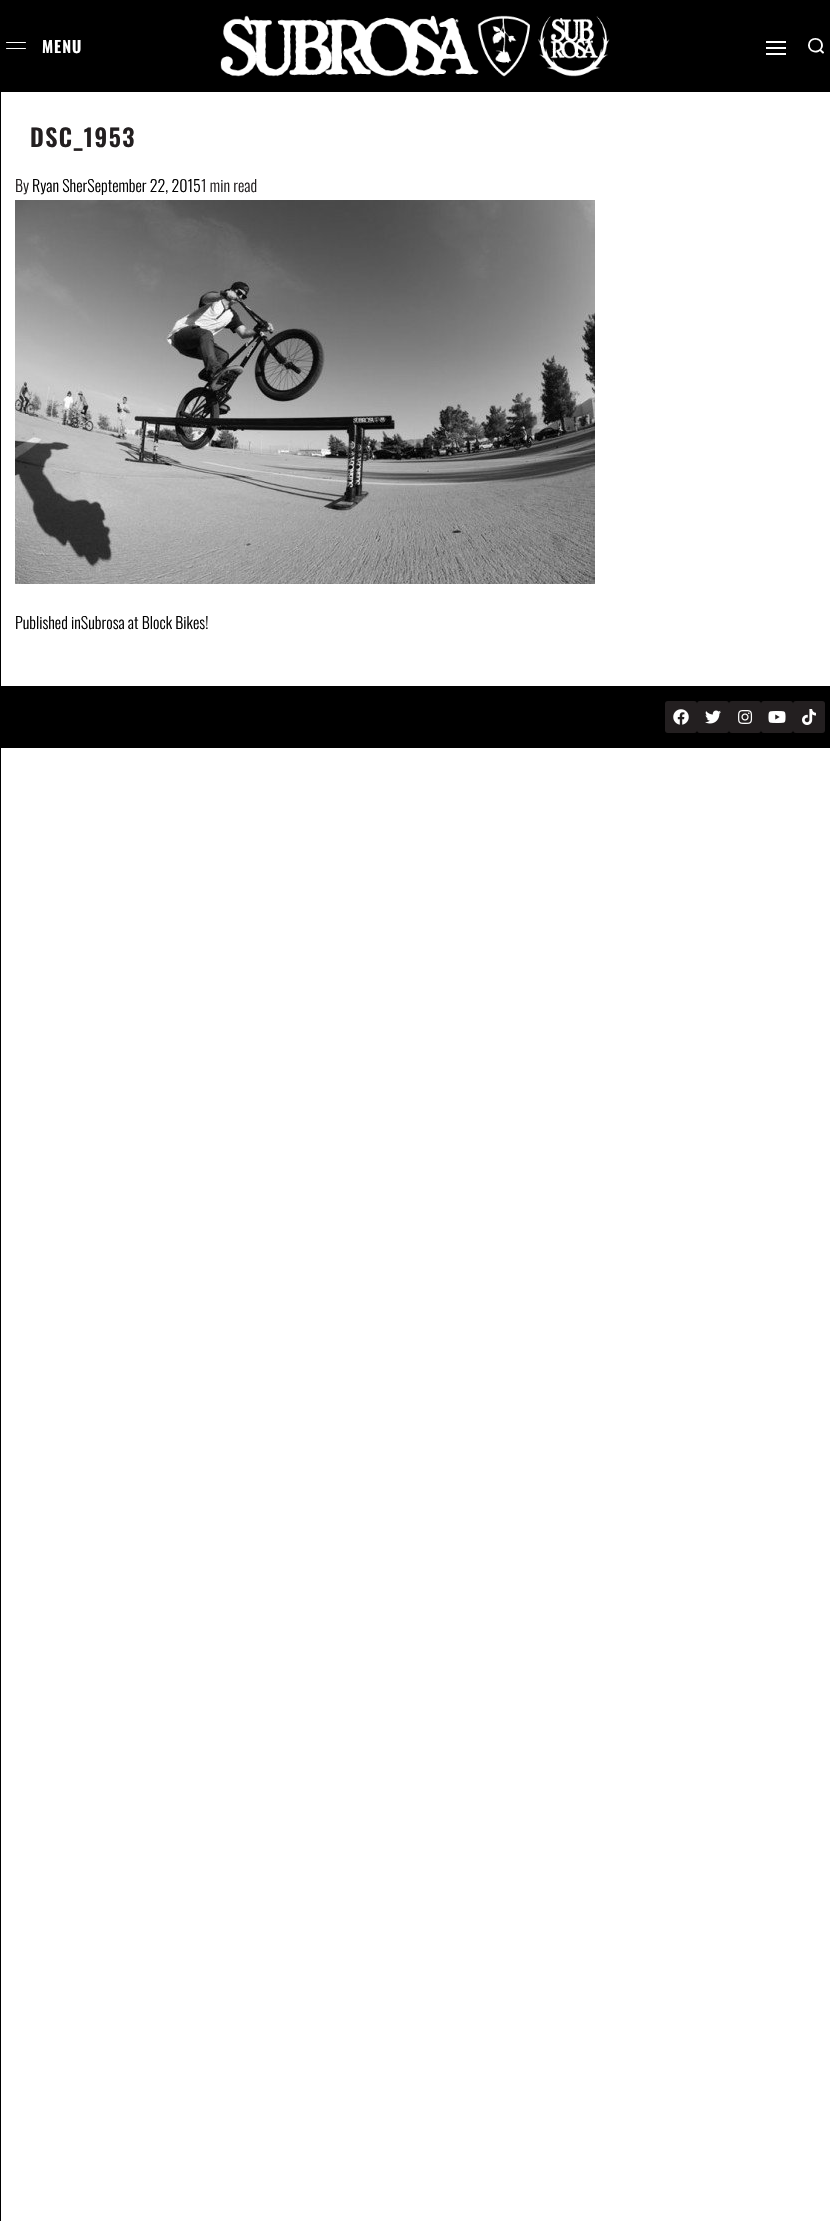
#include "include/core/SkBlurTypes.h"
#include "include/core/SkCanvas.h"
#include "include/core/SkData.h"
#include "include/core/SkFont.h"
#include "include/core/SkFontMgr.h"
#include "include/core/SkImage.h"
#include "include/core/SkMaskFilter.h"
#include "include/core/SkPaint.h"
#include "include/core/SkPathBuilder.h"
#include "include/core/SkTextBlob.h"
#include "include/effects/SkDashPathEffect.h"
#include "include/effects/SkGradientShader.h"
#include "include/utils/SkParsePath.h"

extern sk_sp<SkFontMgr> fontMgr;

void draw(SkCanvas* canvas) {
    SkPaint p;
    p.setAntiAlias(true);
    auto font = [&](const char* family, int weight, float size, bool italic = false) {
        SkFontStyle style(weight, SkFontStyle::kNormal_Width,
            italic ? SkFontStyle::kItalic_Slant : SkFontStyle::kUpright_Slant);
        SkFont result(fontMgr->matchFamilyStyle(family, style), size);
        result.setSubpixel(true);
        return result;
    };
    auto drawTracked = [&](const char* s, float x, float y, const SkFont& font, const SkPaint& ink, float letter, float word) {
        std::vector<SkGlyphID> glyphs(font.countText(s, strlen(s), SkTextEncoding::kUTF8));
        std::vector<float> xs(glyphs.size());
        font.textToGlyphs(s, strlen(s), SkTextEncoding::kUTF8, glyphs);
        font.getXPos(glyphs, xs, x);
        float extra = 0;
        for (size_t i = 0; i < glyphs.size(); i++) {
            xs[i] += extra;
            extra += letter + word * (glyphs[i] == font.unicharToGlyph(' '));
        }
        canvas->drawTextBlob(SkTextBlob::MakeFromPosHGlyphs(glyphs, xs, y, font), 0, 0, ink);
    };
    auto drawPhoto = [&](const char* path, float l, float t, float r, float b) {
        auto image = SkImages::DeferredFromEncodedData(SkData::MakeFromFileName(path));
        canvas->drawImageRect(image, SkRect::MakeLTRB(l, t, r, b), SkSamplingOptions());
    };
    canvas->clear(0xFFFFFFFF);
    p.setColor(0xFF000000);
    canvas->drawRect(SkRect::MakeLTRB(1, 0, 830, 92), p);
    canvas->drawRect(SkRect::MakeLTRB(0, 0, 1, 2221), p);
    p.setColor(0xFFFFFFFF);
    canvas->drawRoundRect(SkRect::MakeLTRB(6, 42, 26, 43), 0.5f, 0.5f, p);
    auto font1 = font("Oswald", 600, 16);
    drawTracked("MENU", 42, 53, font1, p, 1, 0);
    canvas->drawRoundRect(SkRect::MakeLTRB(6, 48, 26, 49), 0.5f, 0.5f, p);
    drawPhoto("media/1.png", 220, 15, 610, 77);
    {
        const struct { float l, t, r, b; SkColor color; } items[] = {
            {766, 41, 786, 43, 0xFFFFFFFF},
            {766, 47, 786, 49, 0xFFFFFFFF},
            {766, 53, 786, 55, 0xFFFFFFFF},
        };
        for (auto [l, t, r, b, color] : items) {
            p.setColor(color);
            canvas->drawRect(SkRect::MakeLTRB(l, t, r, b), p);
        }
    }
    drawPhoto("media/2.png", 808, 38, 824, 54);
    auto font2 = font("Oswald", 600, 24);
    p.setColor(0xFF231F20);
    drawTracked("DSC_1953", 30, 147, font2, p, 1.5f, 0);
    auto font3 = font("Oswald", 300, 16);
    canvas->drawString("By", 15, 192, font3, p);
    p.setColor(0xFF000000);
    canvas->drawString("Ryan SherSeptember 22, 2015", 32, 192, font3, p);
    p.setColor(0xFF231F20);
    canvas->drawString("1 min read", 201, 192, font3, p);
    drawPhoto("media/3.png", 15, 200, 595, 584);
    p.setColor(0xFF000000);
    canvas->drawString("Published inSubrosa at Block Bikes!", 15, 629, font3, p);
    canvas->drawRect(SkRect::MakeLTRB(1, 686, 830, 748), p);
    p.setColor(0xFF231F20);
    canvas->drawRoundRect(SkRect::MakeLTRB(665, 701, 697, 733), 3, 3, p);
    drawPhoto("media/4.png", 673, 709, 689, 725);
    canvas->drawRoundRect(SkRect::MakeLTRB(697, 701, 729, 733), 3, 3, p);
    drawPhoto("media/5.png", 705, 710, 721, 724);
    canvas->drawRoundRect(SkRect::MakeLTRB(729, 701, 761, 733), 3, 3, p);
    drawPhoto("media/6.png", 738, 710, 753, 724);
    canvas->drawRoundRect(SkRect::MakeLTRB(761, 701, 793, 733), 3, 3, p);
    drawPhoto("media/7.png", 768, 711, 786, 723);
    canvas->drawRoundRect(SkRect::MakeLTRB(793, 701, 825, 733), 3, 3, p);
    drawPhoto("media/8.png", 802, 709, 816, 725);
}
